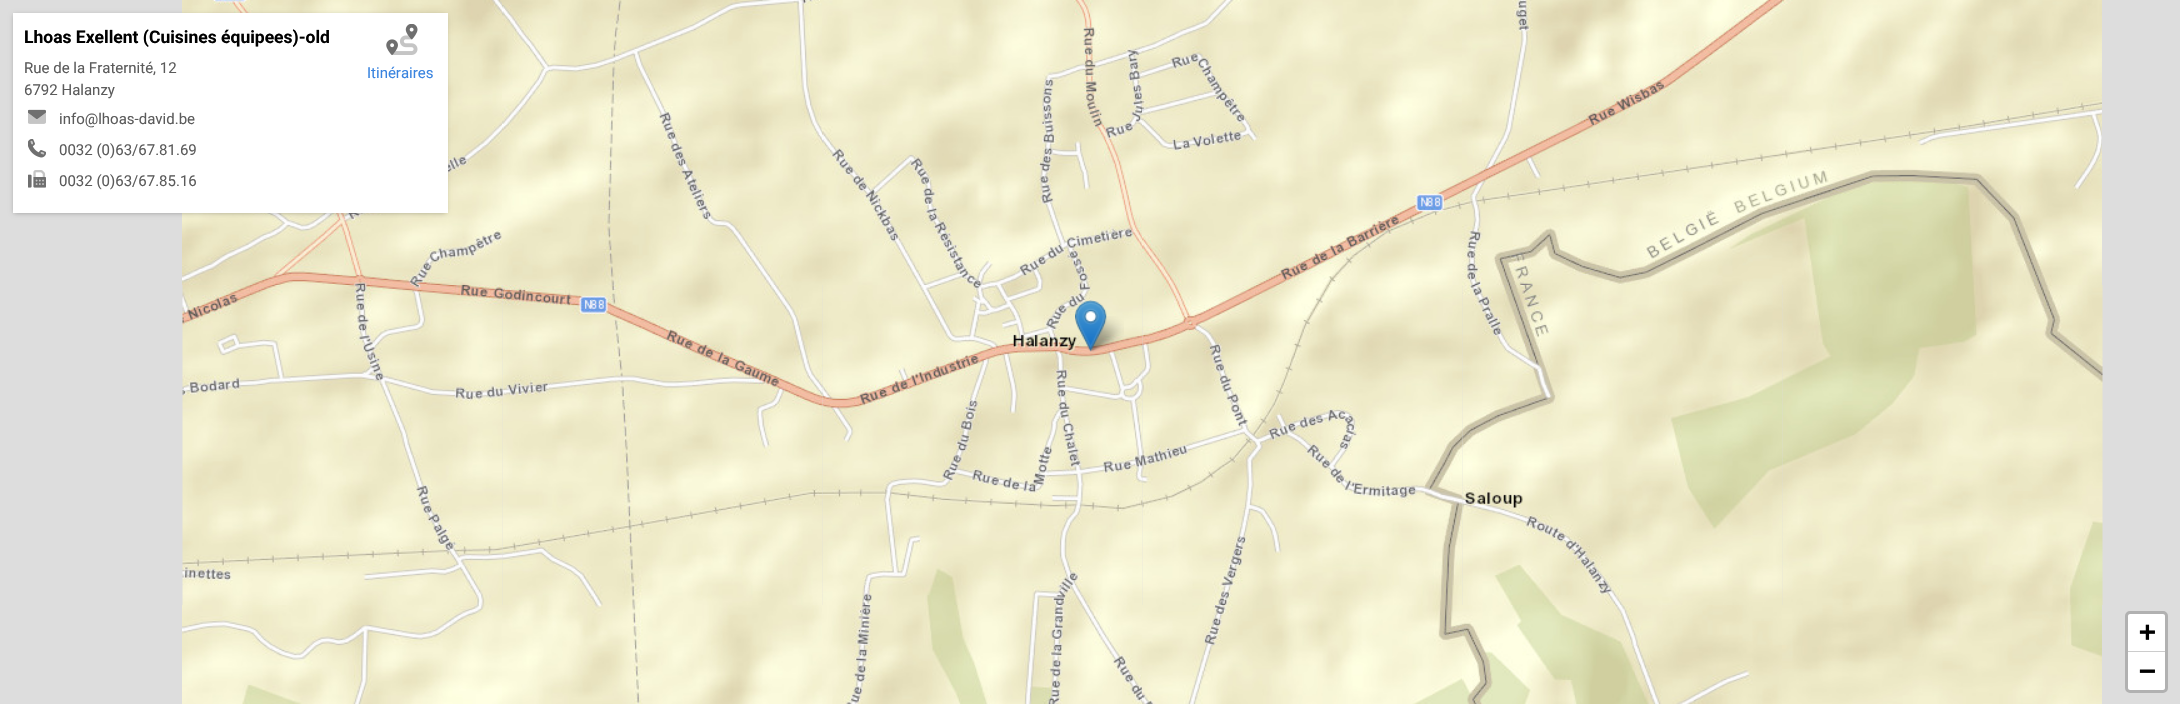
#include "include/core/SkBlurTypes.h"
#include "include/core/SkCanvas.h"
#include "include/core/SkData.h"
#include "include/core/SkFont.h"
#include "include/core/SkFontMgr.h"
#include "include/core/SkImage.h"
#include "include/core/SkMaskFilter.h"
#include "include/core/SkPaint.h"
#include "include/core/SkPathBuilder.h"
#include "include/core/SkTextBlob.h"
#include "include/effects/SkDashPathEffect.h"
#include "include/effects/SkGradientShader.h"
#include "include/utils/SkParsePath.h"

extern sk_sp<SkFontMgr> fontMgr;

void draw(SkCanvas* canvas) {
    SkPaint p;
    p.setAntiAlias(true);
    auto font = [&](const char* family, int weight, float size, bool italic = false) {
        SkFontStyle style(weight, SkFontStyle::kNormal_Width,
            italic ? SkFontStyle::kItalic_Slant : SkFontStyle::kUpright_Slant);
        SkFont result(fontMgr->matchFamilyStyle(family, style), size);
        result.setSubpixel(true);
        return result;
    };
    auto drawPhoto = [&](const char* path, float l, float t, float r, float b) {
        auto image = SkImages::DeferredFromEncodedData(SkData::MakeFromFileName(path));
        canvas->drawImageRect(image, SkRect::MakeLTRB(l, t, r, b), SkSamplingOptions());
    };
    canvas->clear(0xFFDDDDDD);
    drawPhoto("media/1.png", 182, 0, 502, 285);
    drawPhoto("media/2.png", 502, 0, 822, 285);
    drawPhoto("media/3.png", 822, 0, 1142, 285);
    drawPhoto("media/4.png", 1142, 0, 1462, 285);
    drawPhoto("media/5.png", 1462, 0, 1782, 285);
    drawPhoto("media/6.png", 1782, 0, 2102, 285);
    drawPhoto("media/9.png", 822, 285, 1143, 605);
    drawPhoto("media/8.png", 502, 285, 823, 605);
    drawPhoto("media/7.png", 182, 285, 503, 605);
    drawPhoto("media/10.png", 1142, 285, 1463, 605);
    drawPhoto("media/11.png", 1462, 285, 1783, 605);
    drawPhoto("media/12.png", 1782, 285, 2103, 605);
    drawPhoto("media/13.png", 182, 605, 502, 704);
    drawPhoto("media/14.png", 502, 605, 822, 704);
    drawPhoto("media/15.png", 822, 605, 1142, 704);
    drawPhoto("media/16.png", 1142, 605, 1462, 704);
    drawPhoto("media/17.png", 1462, 605, 1782, 704);
    drawPhoto("media/18.png", 1782, 605, 2102, 704);
    drawPhoto("media/20.png", 1086, 316, 1124, 352);
    drawPhoto("media/19.png", 1075, 300, 1107, 352);
    p.setColor(0x4D000000);
    p.setMaskFilter(SkMaskFilter::MakeBlur(kNormal_SkBlurStyle, 2.5f));
    canvas->drawRect(SkRect::MakeLTRB(14, 15, 446, 213), p);
    p.setMaskFilter(nullptr);
    p.setColor(0xFFFFFFFF);
    canvas->drawRect(SkRect::MakeLTRB(13, 13, 448, 213), p);
    auto font1 = font("Roboto", 700, 17.5f);
    p.setColor(0xFF000000);
    canvas->drawString("Lhoas Exellent (Cuisines équipees)-old", 24, 43, font1, p);
    auto font2 = font("Roboto", 400, 15);
    p.setColor(0xFF5B5B5B);
    canvas->drawString("Rue de la Fraternité, 12", 24, 73, font2, p);
    canvas->drawString("6792 Halanzy", 24, 95, font2, p);
    drawPhoto("media/21.png", 28, 109, 46, 124);
    canvas->drawString("info@lhoas-david.be", 59, 124, font2, p);
    drawPhoto("media/22.png", 28, 139, 46, 158);
    canvas->drawString("0032 (0)63/67.81.69", 59, 155, font2, p);
    drawPhoto("media/23.png", 28, 170, 46, 188);
    canvas->drawString("0032 (0)63/67.85.16", 59, 186, font2, p);
    drawPhoto("media/24.png", 386, 24, 418, 55);
    p.setColor(0xFF3A84DF);
    canvas->drawString("Itinéraires", 367, 78, font2, p);
    p.setStyle(SkPaint::kStroke_Style);
    p.setStrokeWidth(3);
    p.setColor(0xFFB1B1B1);
    canvas->drawRoundRect(SkRect::MakeLTRB(2126.5f, 612.5f, 2166.5f, 691.5f), 3.5f, 3.5f, p);
    p.setStyle(SkPaint::kFill_Style);
    p.setColor(0xFFFFFFFF);
    canvas->drawPath(SkPathBuilder().moveTo(2130.5f, 614).lineTo(2162.5f, 614).cubicTo(2164, 614, 2165, 615, 2165, 616.5f).lineTo(2165, 653).lineTo(2128, 653).lineTo(2128, 616.5f).cubicTo(2128, 615, 2129, 614, 2130.5f, 614).close().detach(), p);
    p.setColor(0xFFCCCCCC);
    canvas->drawRect(SkRect::MakeLTRB(2128, 651, 2165, 652), p);
    auto font3 = font("DejaVu Sans Mono", 700, 28);
    p.setColor(0xFF000000);
    canvas->drawString("+", 2139, 641, font3, p);
    p.setColor(0xFFFFFFFF);
    canvas->drawPath(SkPathBuilder().moveTo(2128, 653).lineTo(2165, 653).lineTo(2165, 687.5f).cubicTo(2165, 689, 2164, 690, 2162.5f, 690).lineTo(2130.5f, 690).cubicTo(2129, 690, 2128, 689, 2128, 687.5f).close().detach(), p);
    p.setColor(0xFF000000);
    canvas->drawString("−", 2139, 680, font3, p);
}
